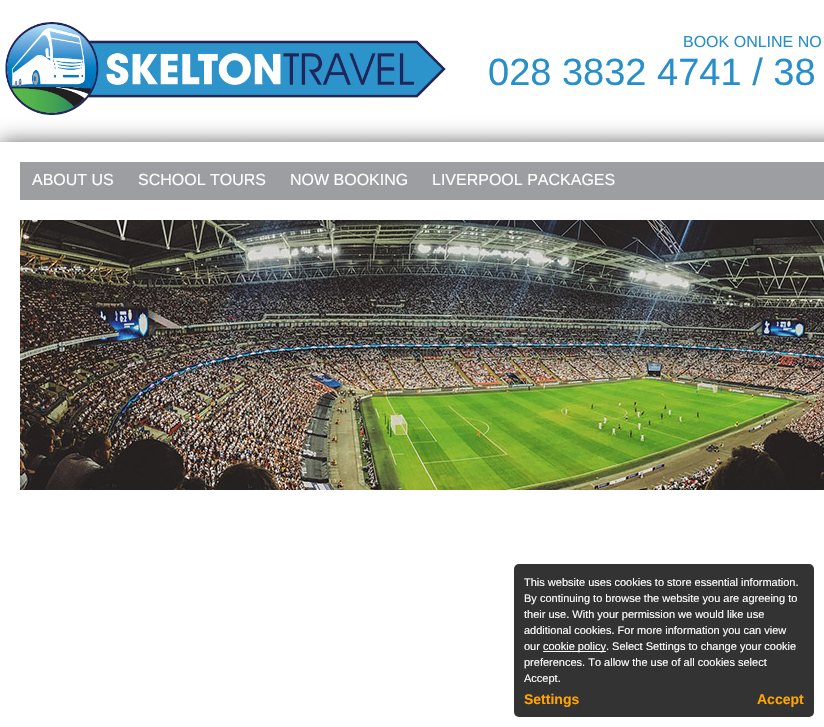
#include "include/core/SkBlurTypes.h"
#include "include/core/SkCanvas.h"
#include "include/core/SkData.h"
#include "include/core/SkFont.h"
#include "include/core/SkFontMgr.h"
#include "include/core/SkImage.h"
#include "include/core/SkMaskFilter.h"
#include "include/core/SkPaint.h"
#include "include/core/SkPathBuilder.h"
#include "include/core/SkTextBlob.h"
#include "include/effects/SkDashPathEffect.h"
#include "include/effects/SkGradientShader.h"
#include "include/utils/SkParsePath.h"

extern sk_sp<SkFontMgr> fontMgr;

void draw(SkCanvas* canvas) {
    SkPaint p;
    p.setAntiAlias(true);
    auto font = [&](const char* family, int weight, float size, bool italic = false) {
        SkFontStyle style(weight, SkFontStyle::kNormal_Width,
            italic ? SkFontStyle::kItalic_Slant : SkFontStyle::kUpright_Slant);
        SkFont result(fontMgr->matchFamilyStyle(family, style), size);
        result.setSubpixel(true);
        return result;
    };
    auto drawPhoto = [&](const char* path, float l, float t, float r, float b) {
        auto image = SkImages::DeferredFromEncodedData(SkData::MakeFromFileName(path));
        canvas->drawImageRect(image, SkRect::MakeLTRB(l, t, r, b), SkSamplingOptions());
    };
    canvas->clear(0xFFFFFFFF);
    drawPhoto("media/1.png", 0, 0, 824, 142);
    auto font1 = font("Liberation Sans", 400, 16);
    p.setColor(0xFF278FCA);
    canvas->drawString("BOOK ONLINE NO", 683, 47, font1, p);
    auto font2 = font("Liberation Sans", 400, 38);
    canvas->drawString("028 3832 4741 / 38", 488, 85, font2, p);
    p.setColor(0xFF666666);
    p.setMaskFilter(SkMaskFilter::MakeBlur(kNormal_SkBlurStyle, 10));
    canvas->drawRect(SkRect::MakeLTRB(0, 142, 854, 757), p);
    p.setMaskFilter(nullptr);
    p.setColor(0xFFFFFFFF);
    canvas->drawRect(SkRect::MakeLTRB(0, 142, 824, 727), p);
    drawPhoto("media/2.png", 5, 22, 446, 115);
    p.setColor(0xFF9C9EA1);
    canvas->drawRect(SkRect::MakeLTRB(20, 162, 824, 200), p);
    p.setColor(0xFFFFFFFF);
    {
        const struct { const char* s; float x, y; } items[] = {
            {"ABOUT US", 32, 185},
            {"SCHOOL TOURS", 138, 185},
            {"NOW BOOKING", 290, 185},
            {"LIVERPOOL PACKAGES", 432, 185},
        };
        for (auto [s, x, y] : items) {
            canvas->drawString(s, x, y, font1, p);
        }
    }
    drawPhoto("media/3.png", 20, 220, 824, 490);
    p.setColor(0xFF333333);
    canvas->drawRoundRect(SkRect::MakeLTRB(514, 564, 814, 717), 5, 5, p);
    auto font3 = font("Liberation Sans", 400, 11);
    p.setColor(0xFFFFFFFF);
    {
        const struct { const char* s; float x, y; } items[] = {
            {"This website uses cookies to store essential information.", 524, 586},
            {"By continuing to browse the website you are agreeing to", 524, 602},
            {"their use. With your permission we would like use", 524, 618},
            {"additional cookies. For more information you can view", 524, 634},
            {"our", 524, 650},
        };
        for (auto [s, x, y] : items) {
            canvas->drawString(s, x, y, font3, p);
        }
    }
    canvas->drawRect(SkRect::MakeLTRB(543, 651, 606, 652), p);
    {
        const struct { const char* s; float x, y; } items[] = {
            {"cookie policy. Select Settings to change your cookie", 543, 650},
            {"preferences. To allow the use of all cookies select", 524, 666},
            {"Accept.", 524, 682},
        };
        for (auto [s, x, y] : items) {
            canvas->drawString(s, x, y, font3, p);
        }
    }
    auto font4 = font("Liberation Sans", 700, 14);
    p.setColor(0xFFFFA400);
    canvas->drawString("Settings", 524, 704, font4, p);
    canvas->drawString("Accept", 757, 704, font4, p);
}
